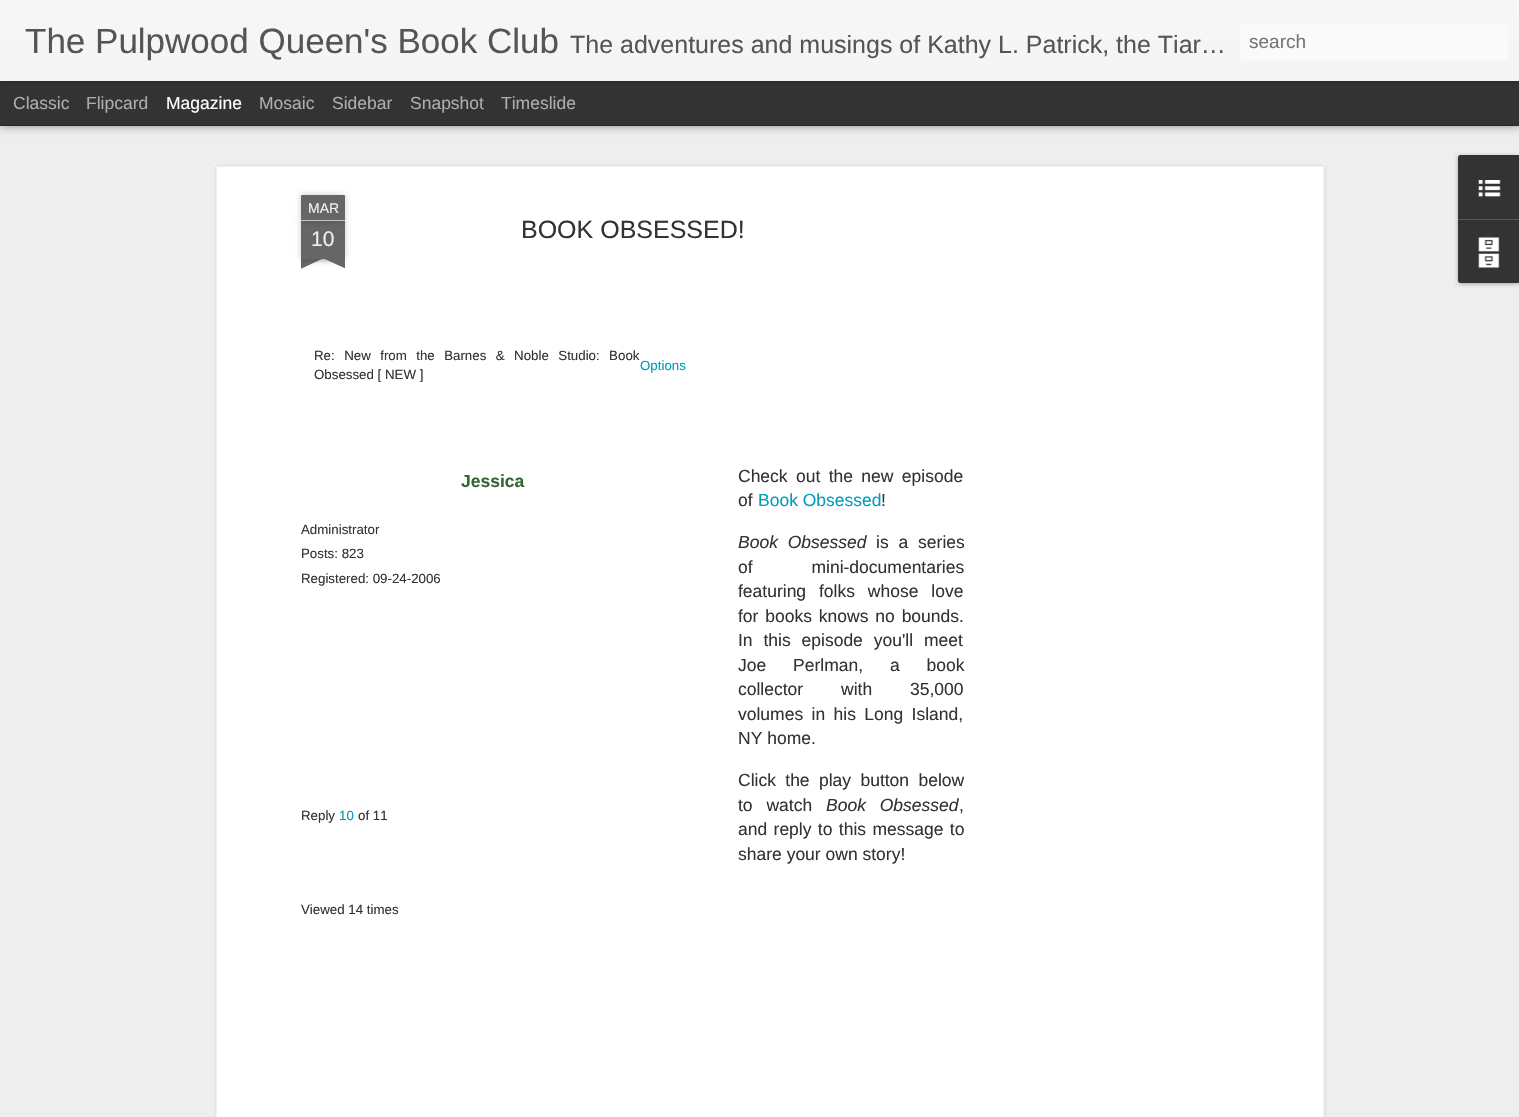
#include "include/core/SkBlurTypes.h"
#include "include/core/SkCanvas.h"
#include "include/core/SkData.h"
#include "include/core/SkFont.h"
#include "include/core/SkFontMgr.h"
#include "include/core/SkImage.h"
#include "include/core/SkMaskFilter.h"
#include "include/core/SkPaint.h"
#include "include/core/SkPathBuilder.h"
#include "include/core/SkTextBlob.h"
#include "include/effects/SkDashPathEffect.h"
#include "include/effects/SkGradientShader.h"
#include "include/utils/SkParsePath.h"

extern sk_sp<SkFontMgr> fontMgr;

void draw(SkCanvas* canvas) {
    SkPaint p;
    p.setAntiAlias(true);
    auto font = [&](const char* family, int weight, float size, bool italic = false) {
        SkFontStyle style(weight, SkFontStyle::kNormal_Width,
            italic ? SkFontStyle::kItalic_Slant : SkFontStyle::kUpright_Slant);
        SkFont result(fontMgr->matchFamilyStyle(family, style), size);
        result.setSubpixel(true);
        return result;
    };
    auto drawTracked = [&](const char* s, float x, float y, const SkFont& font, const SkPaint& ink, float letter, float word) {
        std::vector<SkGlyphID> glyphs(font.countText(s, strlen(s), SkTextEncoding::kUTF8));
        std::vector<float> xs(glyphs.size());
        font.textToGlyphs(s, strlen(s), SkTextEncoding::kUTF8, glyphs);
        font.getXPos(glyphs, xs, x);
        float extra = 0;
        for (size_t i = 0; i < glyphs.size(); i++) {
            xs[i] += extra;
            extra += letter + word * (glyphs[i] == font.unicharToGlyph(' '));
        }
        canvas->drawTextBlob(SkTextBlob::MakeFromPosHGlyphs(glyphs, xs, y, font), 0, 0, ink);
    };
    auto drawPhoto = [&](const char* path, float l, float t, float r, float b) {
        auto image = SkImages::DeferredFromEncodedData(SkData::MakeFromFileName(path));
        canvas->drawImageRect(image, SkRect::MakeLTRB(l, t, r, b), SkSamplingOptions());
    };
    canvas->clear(0xFF333333);
    p.setColor(0xFFEEEEEE);
    canvas->drawRect(SkRect::MakeLTRB(0, 126, 1519, 1117), p);
    p.setColor(0x80000000);
    p.setMaskFilter(SkMaskFilter::MakeBlur(kNormal_SkBlurStyle, 5));
    canvas->drawRect(SkRect::MakeLTRB(0, 81, 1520, 125), p);
    p.setMaskFilter(nullptr);
    p.setColor(0xFF333333);
    canvas->drawRect(SkRect::MakeLTRB(0, 81, 1519, 125), p);
    p.setColor(0x4D000000);
    p.setMaskFilter(SkMaskFilter::MakeBlur(kNormal_SkBlurStyle, 3));
    canvas->drawRect(SkRect::MakeLTRB(0, 0, 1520, 81), p);
    p.setMaskFilter(nullptr);
    {
        const SkColor colors[] = {0xFFF7F7F7, 0xFFF4F4F4};
        const float stops[] = {0, 1};
        const SkPoint ends[] = {{0, 0}, {0, 81}};
        p.setShader(SkGradientShader::MakeLinear(ends, colors, stops, 2, SkTileMode::kClamp));
        p.setAlpha(255);
    }
    canvas->drawRect(SkRect::MakeLTRB(0, 0, 1519, 81), p);
    auto font1 = font("Liberation Sans", 400, 35);
    p.setShader(nullptr);
    p.setColor(0xFF555555);
    canvas->drawString("The Pulpwood Queen's Book Club", 25, 53, font1, p);
    auto font2 = font("Liberation Sans", 400, 25);
    canvas->drawString("The adventures and musings of Kathy L. Patrick, the Tiar…", 570, 53, font2, p);
    p.setColor(0xFFFAFAFA);
    canvas->drawRoundRect(SkRect::MakeLTRB(1240, 23, 1508, 60), 4, 4, p);
    auto font3 = font("Liberation Sans", 400, 19);
    p.setColor(0xFF757575);
    canvas->drawString("search", 1249, 48, font3, p);
    auto font4 = font("Liberation Sans", 400, 17.5f);
    p.setColor(0xFFADADAD);
    canvas->drawString("Classic", 13, 109, font4, p);
    canvas->drawString("Flipcard", 86, 109, font4, p);
    p.setColor(0xFFFFFFFF);
    canvas->drawString("Magazine", 166, 109, font4, p);
    p.setColor(0xFFADADAD);
    {
        const struct { const char* s; float x, y; } items[] = {
            {"Mosaic", 259, 109},
            {"Sidebar", 332, 109},
            {"Snapshot", 410, 109},
            {"Timeslide", 501, 109},
        };
        for (auto [s, x, y] : items) {
            canvas->drawString(s, x, y, font4, p);
        }
    }
    p.setColor(0xFFFFFFFF);
    canvas->drawRect(SkRect::MakeLTRB(214, 164, 1326, 1117), p);
    drawPhoto("media/1.png", 214, 164, 1327, 1117);
    p.setColor(0x33000000);
    p.setMaskFilter(SkMaskFilter::MakeBlur(kNormal_SkBlurStyle, 3));
    canvas->drawRect(SkRect::MakeLTRB(301, 221, 345, 259), p);
    p.setMaskFilter(nullptr);
    p.setColor(0xFF666666);
    canvas->drawRect(SkRect::MakeLTRB(301, 221, 345, 259), p);
    p.setColor(0x33000000);
    p.setMaskFilter(SkMaskFilter::MakeBlur(kNormal_SkBlurStyle, 3));
    canvas->drawRoundRect(SkRect::MakeLTRB(301, 195, 345, 221), 1, 1, p);
    p.setMaskFilter(nullptr);
    p.setColor(0xFF666666);
    canvas->drawPath(SkPathBuilder().moveTo(302, 195).lineTo(344, 195).cubicTo(344.5f, 195, 345, 195.5f, 345, 196).lineTo(345, 221).lineTo(301, 221).lineTo(301, 196).cubicTo(301, 195.5f, 301.5f, 195, 302, 195).close().detach(), p);
    p.setColor(0xFFC2C2C2);
    canvas->drawRect(SkRect::MakeLTRB(301, 220, 345, 221), p);
    auto font5 = font("Liberation Sans", 400, 14);
    p.setColor(0xFFEEEEEE);
    canvas->drawString("MAR", 308, 213, font5, p);
    auto font6 = font("Liberation Sans", 400, 21);
    canvas->drawString("10", 311, 246, font6, p);
    canvas->save();
    canvas->clipRect(SkRect::MakeLTRB(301, 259, 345, 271));
    p.setColor(0x33000000);
    p.setMaskFilter(SkMaskFilter::MakeBlur(kNormal_SkBlurStyle, 3));
    canvas->drawRect(SkRect::MakeLTRB(290, 246, 353, 259), p);
    p.setMaskFilter(nullptr);
    canvas->restore();
    canvas->save();
    canvas->clipRect(SkRect::MakeLTRB(301, 259, 345, 271));
    p.setColor(0xFF666666);
    canvas->drawPath(SkPathBuilder().moveTo(290, 260).lineTo(347, 234).lineTo(352, 245).lineTo(296, 271).close().detach(), p);
    canvas->restore();
    canvas->save();
    canvas->clipRect(SkRect::MakeLTRB(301, 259, 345, 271));
    p.setColor(0x33000000);
    p.setMaskFilter(SkMaskFilter::MakeBlur(kNormal_SkBlurStyle, 3));
    canvas->drawRect(SkRect::MakeLTRB(294, 246, 356, 259), p);
    p.setMaskFilter(nullptr);
    canvas->restore();
    canvas->save();
    canvas->clipRect(SkRect::MakeLTRB(301, 259, 345, 271));
    p.setColor(0xFF666666);
    canvas->drawPath(SkPathBuilder().moveTo(299, 234).lineTo(356, 260).lineTo(351, 271).lineTo(294, 245).close().detach(), p);
    canvas->restore();
    p.setColor(0xFF333333);
    canvas->drawString("BOOK OBSESSED!", 521, 238, font2, p);
    auto font7 = font("Liberation Sans", 400, 13.3f);
    drawTracked("Re: New from the Barnes & Noble Studio: Book", 314, 360, font7, p, 0, 5.75f);
    canvas->drawString("Obsessed [ NEW ]", 314, 379, font7, p);
    p.setColor(0xFF009EB8);
    canvas->drawString("Options", 640, 370, font7, p);
    auto font8 = font("Liberation Sans", 700, 17.5f);
    p.setColor(0xFF336633);
    canvas->drawString("Jessica", 461, 487, font8, p);
    p.setColor(0xFF333333);
    {
        const struct { const char* s; float x, y; } items[] = {
            {"Administrator", 301, 534},
            {"Posts: 823", 301, 558},
            {"Registered: 09-24-2006", 301, 583},
            {"Reply", 301, 820},
        };
        for (auto [s, x, y] : items) {
            canvas->drawString(s, x, y, font7, p);
        }
    }
    p.setColor(0xFF009EB8);
    canvas->drawString("10", 339, 820, font7, p);
    p.setColor(0xFF333333);
    canvas->drawString("of 11", 358, 820, font7, p);
    canvas->drawString("Viewed 14 times", 301, 914, font7, p);
    drawTracked("Check out the new episode", 738, 482, font4, p, 0, 3.5f);
    canvas->drawString("of", 738, 506, font4, p);
    p.setColor(0xFF009EB8);
    canvas->drawString("Book Obsessed", 758, 506, font4, p);
    p.setColor(0xFF333333);
    canvas->drawString("!", 881, 506, font4, p);
    auto font9 = font("Liberation Sans", 400, 17.5f, true);
    drawTracked("Book Obsessed", 738, 548, font9, p, 0, 5);
    drawTracked("is a series", 876, 548, font4, p, 0, 5);
    drawTracked("of mini-documentaries", 738, 573, font4, p, 0, 54);
    drawTracked("featuring folks whose love", 738, 597, font4, p, 0, 8);
    drawTracked("for books knows no bounds.", 738, 622, font4, p, 0, 2);
    drawTracked("In this episode you'll meet", 738, 646, font4, p, 0, 6);
    drawTracked("Joe Perlman, a book", 738, 671, font4, p, 0, 22);
    drawTracked("collector with 35,000", 738, 695, font4, p, 0, 33);
    drawTracked("volumes in his Long Island,", 738, 720, font4, p, 0, 3.5f);
    canvas->drawString("NY home.", 738, 744, font4, p);
    drawTracked("Click the play button below", 738, 786, font4, p, 0, 4.5f);
    drawTracked("to watch", 738, 811, font4, p, 0, 9);
    drawTracked("Book Obsessed", 826, 811, font9, p, 0, 9);
    canvas->drawString(",", 959, 811, font4, p);
    drawTracked("and reply to this message to", 738, 835, font4, p, 0, 1.5f);
    canvas->drawString("share your own story!", 738, 860, font4, p);
    p.setColor(0x4D000000);
    p.setMaskFilter(SkMaskFilter::MakeBlur(kNormal_SkBlurStyle, 2));
    canvas->drawRoundRect(SkRect::MakeLTRB(1458, 156, 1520, 284), 2.5f, 2.5f, p);
    p.setMaskFilter(nullptr);
    p.setColor(0xFF333333);
    canvas->drawPath(SkPathBuilder().moveTo(1460.5f, 155).lineTo(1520, 155).lineTo(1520, 219).lineTo(1458, 219).lineTo(1458, 157.5f).cubicTo(1458, 156, 1459, 155, 1460.5f, 155).close().detach(), p);
    drawPhoto("media/2.png", 1478, 180, 1501, 197);
    canvas->drawPath(SkPathBuilder().moveTo(1458, 219).lineTo(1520, 219).lineTo(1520, 283).lineTo(1460.5f, 283).cubicTo(1459, 283, 1458, 282, 1458, 280.5f).close().detach(), p);
    p.setColor(0xFF585858);
    canvas->drawRect(SkRect::MakeLTRB(1458, 219, 1519, 220), p);
    drawPhoto("media/3.png", 1478, 237, 1500, 268);
}
